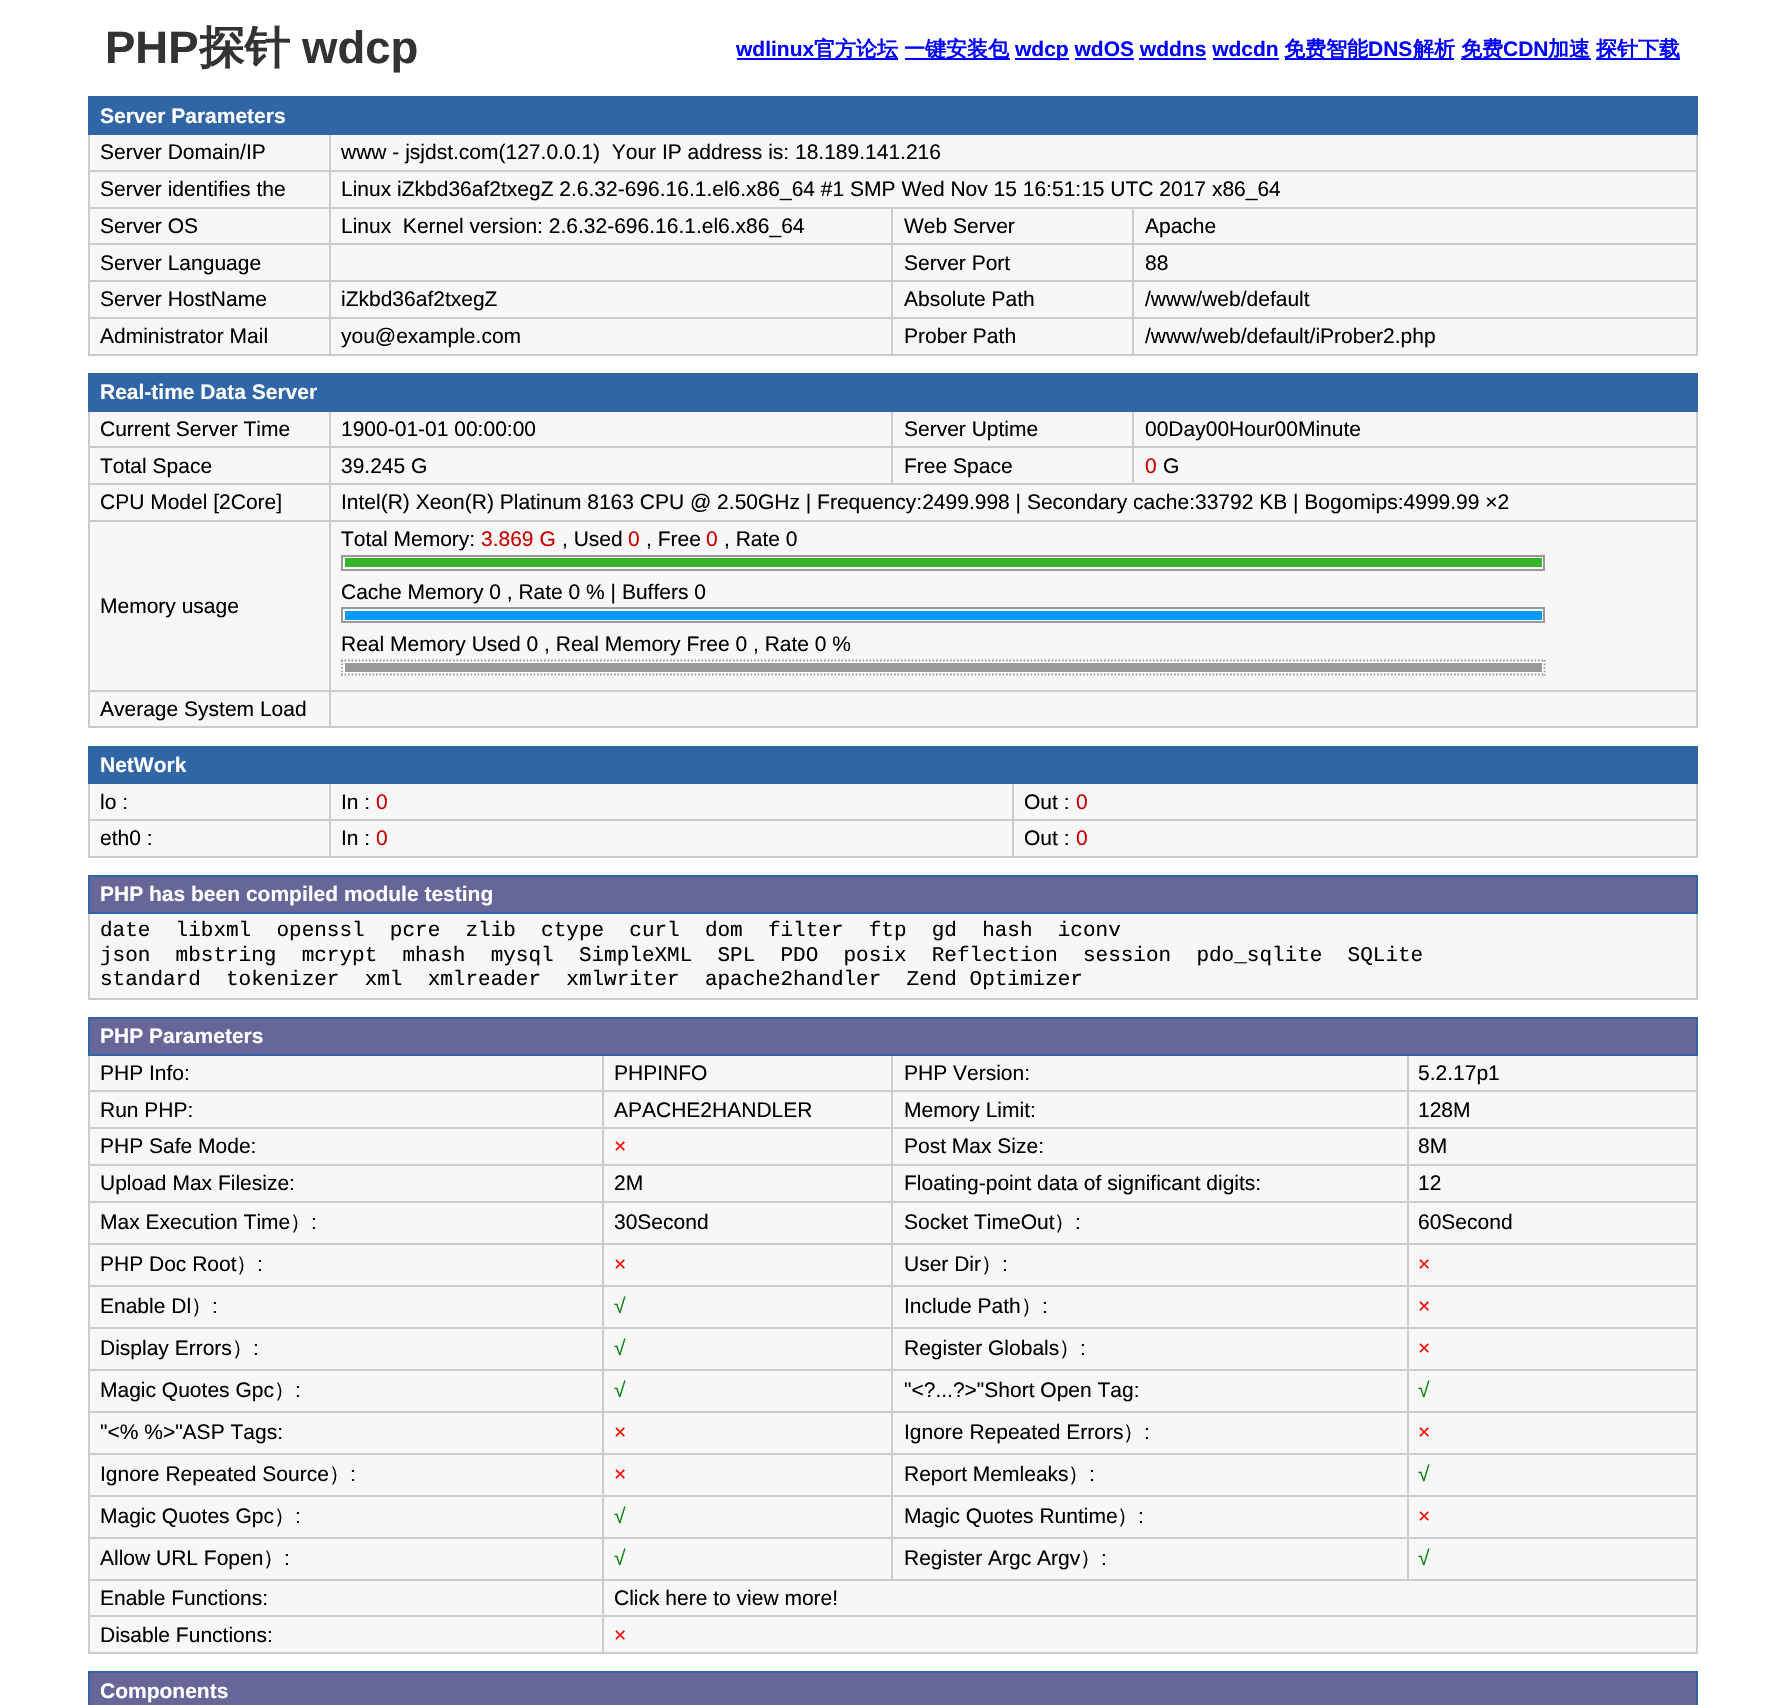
#include "include/core/SkBlurTypes.h"
#include "include/core/SkCanvas.h"
#include "include/core/SkData.h"
#include "include/core/SkFont.h"
#include "include/core/SkFontMgr.h"
#include "include/core/SkImage.h"
#include "include/core/SkMaskFilter.h"
#include "include/core/SkPaint.h"
#include "include/core/SkPathBuilder.h"
#include "include/core/SkTextBlob.h"
#include "include/effects/SkDashPathEffect.h"
#include "include/effects/SkGradientShader.h"
#include "include/utils/SkParsePath.h"

extern sk_sp<SkFontMgr> fontMgr;

void draw(SkCanvas* canvas) {
    SkPaint p;
    p.setAntiAlias(true);
    auto font = [&](const char* family, int weight, float size, bool italic = false) {
        SkFontStyle style(weight, SkFontStyle::kNormal_Width,
            italic ? SkFontStyle::kItalic_Slant : SkFontStyle::kUpright_Slant);
        SkFont result(fontMgr->matchFamilyStyle(family, style), size);
        result.setSubpixel(true);
        return result;
    };
    canvas->clear(0xFFFFFFFF);
    auto font1 = font("Liberation Sans", 700, 45.5f);
    p.setColor(0xFF333333);
    canvas->drawString("PHP", 105, 63, font1, p);
    auto font2 = font("WenQuanYi Zen Hei", 700, 45.5f);
    canvas->drawString("探针", 199, 63, font2, p);
    canvas->drawString("wdcp", 302, 63, font1, p);
    auto font3 = font("Liberation Sans", 700, 21);
    p.setColor(0xFF0000FF);
    canvas->drawString("wdlinux", 736, 56, font3, p);
    canvas->drawRect(SkRect::MakeLTRB(737, 58, 898, 60), p);
    auto font4 = font("WenQuanYi Zen Hei", 700, 21);
    canvas->drawString("官方论坛", 814, 56, font4, p);
    canvas->drawRect(SkRect::MakeLTRB(905, 58, 1010, 60), p);
    canvas->drawString("一键安装包", 904, 56, font4, p);
    canvas->drawRect(SkRect::MakeLTRB(1015, 58, 1069, 60), p);
    canvas->drawString("wdcp wdOS wddns wdcdn", 1015, 56, font3, p);
    canvas->drawRect(SkRect::MakeLTRB(1285, 58, 1454, 60), p);
    canvas->drawString("免费智能", 1284, 56, font4, p);
    canvas->drawString("DNS", 1368, 56, font3, p);
    canvas->drawString("解析", 1413, 56, font4, p);
    canvas->drawRect(SkRect::MakeLTRB(1461, 58, 1591, 60), p);
    canvas->drawString("免费", 1461, 56, font4, p);
    canvas->drawString("CDN", 1503, 56, font3, p);
    canvas->drawString("加速", 1548, 56, font4, p);
    canvas->drawRect(SkRect::MakeLTRB(1596, 58, 1680, 60), p);
    canvas->drawString("探针下载", 1596, 56, font4, p);
    {
        const struct { float l, t, r, b; SkColor color; } items[] = {
            {1075, 58, 1134, 60, 0xFF0000FF},
            {1139, 58, 1206, 60, 0xFF0000FF},
            {1213, 58, 1279, 60, 0xFF0000FF},
            {90, 98, 1696, 133, 0xFF3066A6},
            {88, 96, 1698, 98, 0xFF3066A6},
            {329, 170, 1698, 172, 0xFFCCCCCC},
            {1132, 207, 1698, 209, 0xFFCCCCCC},
            {1132, 243, 1698, 245, 0xFFCCCCCC},
            {1132, 280, 1698, 282, 0xFFCCCCCC},
            {1132, 317, 1698, 319, 0xFFCCCCCC},
            {1696, 317, 1698, 355, 0xFFCCCCCC},
            {1696, 280, 1698, 319, 0xFFCCCCCC},
            {1696, 243, 1698, 282, 0xFFCCCCCC},
            {1696, 207, 1698, 245, 0xFFCCCCCC},
            {1696, 133, 1698, 208, 0xFFCCCCCC},
            {1696, 96, 1698, 135, 0xFF3066A6},
            {90, 135, 1696, 170, 0xFFF7F7F7},
            {90, 172, 1696, 207, 0xFFF7F7F7},
            {90, 209, 1696, 243, 0xFFF7F7F7},
            {90, 245, 1696, 280, 0xFFF7F7F7},
            {90, 282, 1696, 317, 0xFFF7F7F7},
            {90, 319, 1696, 354, 0xFFF7F7F7},
            {1132, 354, 1698, 356, 0xFFCCCCCC},
            {1132, 317, 1134, 355, 0xFFCCCCCC},
            {891, 317, 1134, 319, 0xFFCCCCCC},
            {1132, 280, 1134, 319, 0xFFCCCCCC},
            {891, 280, 1134, 282, 0xFFCCCCCC},
            {1132, 243, 1134, 282, 0xFFCCCCCC},
            {891, 243, 1134, 245, 0xFFCCCCCC},
            {1132, 207, 1134, 245, 0xFFCCCCCC},
            {891, 207, 1134, 209, 0xFFCCCCCC},
            {891, 354, 1134, 356, 0xFFCCCCCC},
            {891, 317, 893, 355, 0xFFCCCCCC},
            {329, 317, 893, 319, 0xFFCCCCCC},
            {891, 280, 893, 319, 0xFFCCCCCC},
            {329, 280, 893, 282, 0xFFCCCCCC},
            {891, 243, 893, 282, 0xFFCCCCCC},
            {329, 243, 893, 245, 0xFFCCCCCC},
            {891, 207, 893, 245, 0xFFCCCCCC},
            {329, 207, 893, 209, 0xFFCCCCCC},
            {329, 354, 893, 356, 0xFFCCCCCC},
            {329, 317, 331, 355, 0xFFCCCCCC},
            {88, 317, 331, 319, 0xFFCCCCCC},
            {329, 280, 331, 319, 0xFFCCCCCC},
            {88, 280, 331, 282, 0xFFCCCCCC},
            {329, 243, 331, 282, 0xFFCCCCCC},
            {88, 243, 331, 245, 0xFFCCCCCC},
            {329, 207, 331, 245, 0xFFCCCCCC},
            {88, 207, 331, 209, 0xFFCCCCCC},
            {329, 170, 331, 208, 0xFFCCCCCC},
            {88, 170, 331, 172, 0xFFCCCCCC},
            {329, 133, 331, 172, 0xFFCCCCCC},
            {88, 354, 331, 356, 0xFFCCCCCC},
            {88, 317, 90, 355, 0xFFCCCCCC},
            {88, 280, 90, 319, 0xFFCCCCCC},
            {88, 243, 90, 282, 0xFFCCCCCC},
            {88, 207, 90, 245, 0xFFCCCCCC},
            {88, 133, 90, 208, 0xFFCCCCCC},
            {88, 133, 1698, 135, 0xFF3066A6},
            {88, 96, 90, 135, 0xFF3066A6},
        };
        for (auto [l, t, r, b, color] : items) {
            p.setColor(color);
            canvas->drawRect(SkRect::MakeLTRB(l, t, r, b), p);
        }
    }
    p.setColor(0xFFFFFFFF);
    canvas->drawString("Server Parameters", 100, 123, font3, p);
    auto font5 = font("Liberation Sans", 400, 21);
    p.setColor(0xFF000000);
    {
        const struct { const char* s; float x, y; } items[] = {
            {"Server Domain/IP", 100, 159},
            {"www - jsjdst.com(127.0.0.1)  Your IP address is: 18.189.141.216", 341, 159},
            {"Server identifies the", 100, 196},
            {"Linux iZkbd36af2txegZ 2.6.32-696.16.1.el6.x86_64 #1 SMP Wed Nov 15 16:51:15 UTC 2017 x86_64", 341, 196},
            {"Server OS", 100, 233},
            {"Linux  Kernel version: 2.6.32-696.16.1.el6.x86_64", 341, 233},
            {"Web Server", 904, 233},
            {"Apache", 1145, 233},
            {"Server Language", 100, 270},
            {"Server Port", 904, 270},
            {"88", 1145, 270},
            {"Server HostName", 100, 306},
            {"iZkbd36af2txegZ", 341, 306},
            {"Absolute Path", 904, 306},
            {"/www/web/default", 1145, 306},
            {"Administrator Mail", 100, 343},
            {"you@example.com", 341, 343},
            {"Prober Path", 904, 343},
            {"/www/web/default/iProber2.php", 1145, 343},
        };
        for (auto [s, x, y] : items) {
            canvas->drawString(s, x, y, font5, p);
        }
    }
    {
        const struct { float l, t, r, b; SkColor color; } items[] = {
            {90, 375, 1696, 410, 0xFF3066A6},
            {88, 373, 1698, 375, 0xFF3066A6},
            {1132, 446, 1698, 448, 0xFFCCCCCC},
            {329, 483, 1698, 485, 0xFFCCCCCC},
            {329, 520, 1698, 522, 0xFFCCCCCC},
            {329, 690, 1698, 692, 0xFFCCCCCC},
            {1696, 690, 1698, 728, 0xFFCCCCCC},
            {1696, 520, 1698, 691, 0xFFCCCCCC},
            {1696, 483, 1698, 522, 0xFFCCCCCC},
            {1696, 410, 1698, 485, 0xFFCCCCCC},
            {1696, 373, 1698, 411, 0xFF3066A6},
            {90, 412, 1696, 446, 0xFFF7F7F7},
            {90, 448, 1696, 483, 0xFFF7F7F7},
            {1132, 446, 1134, 485, 0xFFCCCCCC},
            {891, 446, 1134, 448, 0xFFCCCCCC},
            {891, 446, 893, 485, 0xFFCCCCCC},
            {329, 446, 893, 448, 0xFFCCCCCC},
            {90, 485, 1696, 520, 0xFFF7F7F7},
            {90, 522, 1696, 690, 0xFFF7F7F7},
            {90, 692, 1696, 726, 0xFFF7F7F7},
            {329, 726, 1698, 728, 0xFFCCCCCC},
            {329, 690, 331, 728, 0xFFCCCCCC},
            {88, 690, 331, 692, 0xFFCCCCCC},
            {329, 520, 331, 691, 0xFFCCCCCC},
            {88, 520, 331, 522, 0xFFCCCCCC},
            {329, 483, 331, 522, 0xFFCCCCCC},
            {88, 483, 331, 485, 0xFFCCCCCC},
            {329, 446, 331, 485, 0xFFCCCCCC},
            {88, 446, 331, 448, 0xFFCCCCCC},
            {329, 410, 331, 448, 0xFFCCCCCC},
            {891, 410, 893, 448, 0xFFCCCCCC},
            {1132, 410, 1134, 448, 0xFFCCCCCC},
            {88, 726, 331, 728, 0xFFCCCCCC},
            {88, 690, 90, 728, 0xFFCCCCCC},
            {88, 520, 90, 691, 0xFFCCCCCC},
            {88, 483, 90, 522, 0xFFCCCCCC},
            {88, 410, 90, 485, 0xFFCCCCCC},
            {88, 410, 1698, 412, 0xFF3066A6},
            {88, 373, 90, 411, 0xFF3066A6},
        };
        for (auto [l, t, r, b, color] : items) {
            p.setColor(color);
            canvas->drawRect(SkRect::MakeLTRB(l, t, r, b), p);
        }
    }
    p.setColor(0xFFFFFFFF);
    canvas->drawString("Real-time Data Server", 100, 399, font3, p);
    p.setColor(0xFF000000);
    {
        const struct { const char* s; float x, y; } items[] = {
            {"Current Server Time", 100, 436},
            {"1900-01-01 00:00:00", 341, 436},
            {"Server Uptime", 904, 436},
            {"00Day00Hour00Minute", 1145, 436},
            {"Total Space", 100, 473},
            {"39.245 G", 341, 473},
            {"Free Space", 904, 473},
        };
        for (auto [s, x, y] : items) {
            canvas->drawString(s, x, y, font5, p);
        }
    }
    p.setColor(0xFFCC0000);
    canvas->drawString("0", 1145, 473, font5, p);
    p.setColor(0xFF000000);
    {
        const struct { const char* s; float x, y; } items[] = {
            {"G", 1163, 473},
            {"CPU Model [2Core]", 100, 509},
            {"Intel(R) Xeon(R) Platinum 8163 CPU @ 2.50GHz | Frequency:2499.998 | Secondary cache:33792 KB | Bogomips:4999.99 ×2", 341, 509},
            {"Memory usage", 100, 613},
            {"Total Memory:", 341, 546},
        };
        for (auto [s, x, y] : items) {
            canvas->drawString(s, x, y, font5, p);
        }
    }
    p.setColor(0xFFCC0000);
    canvas->drawString("3.869 G", 481, 546, font5, p);
    p.setColor(0xFF000000);
    canvas->drawString(", Used", 562, 546, font5, p);
    p.setColor(0xFFCC0000);
    canvas->drawString("0", 628, 546, font5, p);
    p.setColor(0xFF000000);
    canvas->drawString(", Free", 646, 546, font5, p);
    p.setColor(0xFFCC0000);
    canvas->drawString("0", 706, 546, font5, p);
    p.setColor(0xFF000000);
    canvas->drawString(", Rate 0", 724, 546, font5, p);
    p.setColor(0xFFFFFFFF);
    canvas->drawRect(SkRect::MakeLTRB(342, 556, 1544, 570), p);
    p.setStyle(SkPaint::kStroke_Style);
    p.setStrokeWidth(2);
    p.setColor(0xFF999999);
    canvas->drawRect(SkRect::MakeLTRB(342, 556, 1544, 570), p);
    p.setStyle(SkPaint::kFill_Style);
    p.setColor(0xFF36B52A);
    canvas->drawRect(SkRect::MakeLTRB(345, 558, 1542, 567), p);
    p.setColor(0xFF000000);
    canvas->drawString("Cache Memory 0 , Rate 0 % | Buffers 0", 341, 599, font5, p);
    p.setColor(0xFFFFFFFF);
    canvas->drawRect(SkRect::MakeLTRB(342, 608, 1544, 622), p);
    p.setStyle(SkPaint::kStroke_Style);
    p.setColor(0xFF999999);
    canvas->drawRect(SkRect::MakeLTRB(342, 608, 1544, 622), p);
    p.setStyle(SkPaint::kFill_Style);
    p.setColor(0xFF0099FF);
    canvas->drawRect(SkRect::MakeLTRB(345, 611, 1542, 620), p);
    p.setColor(0xFF000000);
    canvas->drawString("Real Memory Used 0 , Real Memory Free 0 , Rate 0 %", 341, 651, font5, p);
    p.setColor(0xFFFFFFFF);
    canvas->drawRect(SkRect::MakeLTRB(341, 660, 1545, 676), p);
    p.setStyle(SkPaint::kStroke_Style);
    p.setStrokeWidth(1.8f);
    p.setColor(0xFF999999);
    p.setPathEffect(SkDashPathEffect::Make({{1.75f, 1.75f}}, 0));
    canvas->drawPath(SkPathBuilder().moveTo(341, 660.5f).lineTo(1545, 660.5f).detach(), p);
    p.setPathEffect(nullptr);
    p.setPathEffect(SkDashPathEffect::Make({{1.75f, 1.75f}}, 0));
    canvas->drawPath(SkPathBuilder().moveTo(1544.5f, 660).lineTo(1544.5f, 675.5f).detach(), p);
    p.setPathEffect(nullptr);
    p.setPathEffect(SkDashPathEffect::Make({{1.75f, 1.75f}}, 0));
    canvas->drawPath(SkPathBuilder().moveTo(341, 674.5f).lineTo(1545, 674.5f).detach(), p);
    p.setPathEffect(nullptr);
    p.setPathEffect(SkDashPathEffect::Make({{1.75f, 1.75f}}, 0));
    canvas->drawPath(SkPathBuilder().moveTo(342, 660).lineTo(342, 675.5f).detach(), p);
    p.setPathEffect(nullptr);
    p.setStyle(SkPaint::kFill_Style);
    canvas->drawRect(SkRect::MakeLTRB(345, 663, 1542, 672), p);
    p.setColor(0xFF000000);
    canvas->drawString("Average System Load", 100, 716, font5, p);
    {
        const struct { float l, t, r, b; SkColor color; } items[] = {
            {90, 748, 1696, 782, 0xFF3066A6},
            {88, 746, 1698, 748, 0xFF3066A6},
            {1012, 819, 1698, 821, 0xFFCCCCCC},
            {1696, 782, 1698, 858, 0xFFCCCCCC},
            {1696, 746, 1698, 784, 0xFF3066A6},
            {90, 784, 1696, 819, 0xFFF7F7F7},
            {90, 821, 1696, 856, 0xFFF7F7F7},
            {1012, 856, 1698, 858, 0xFFCCCCCC},
            {1012, 819, 1014, 858, 0xFFCCCCCC},
            {329, 819, 1013, 821, 0xFFCCCCCC},
            {329, 856, 1013, 858, 0xFFCCCCCC},
            {329, 819, 331, 858, 0xFFCCCCCC},
            {88, 819, 331, 821, 0xFFCCCCCC},
            {329, 782, 331, 821, 0xFFCCCCCC},
            {1012, 782, 1014, 821, 0xFFCCCCCC},
            {88, 856, 331, 858, 0xFFCCCCCC},
            {88, 782, 90, 858, 0xFFCCCCCC},
            {88, 782, 1698, 784, 0xFF3066A6},
            {88, 746, 90, 784, 0xFF3066A6},
        };
        for (auto [l, t, r, b, color] : items) {
            p.setColor(color);
            canvas->drawRect(SkRect::MakeLTRB(l, t, r, b), p);
        }
    }
    p.setColor(0xFFFFFFFF);
    canvas->drawString("NetWork", 100, 772, font3, p);
    p.setColor(0xFF000000);
    canvas->drawString("lo :", 100, 809, font5, p);
    canvas->drawString("In :", 341, 809, font5, p);
    p.setColor(0xFFCC0000);
    canvas->drawString("0", 376, 809, font5, p);
    p.setColor(0xFF000000);
    canvas->drawString("Out :", 1024, 809, font5, p);
    p.setColor(0xFFCC0000);
    canvas->drawString("0", 1076, 809, font5, p);
    p.setColor(0xFF000000);
    canvas->drawString("eth0 :", 100, 845, font5, p);
    canvas->drawString("In :", 341, 845, font5, p);
    p.setColor(0xFFCC0000);
    canvas->drawString("0", 376, 845, font5, p);
    p.setColor(0xFF000000);
    canvas->drawString("Out :", 1024, 845, font5, p);
    p.setColor(0xFFCC0000);
    canvas->drawString("0", 1076, 845, font5, p);
    {
        const struct { float l, t, r, b; SkColor color; } items[] = {
            {90, 877, 1696, 912, 0xFF666699},
            {88, 875, 1698, 877, 0xFF3066A6},
            {1696, 912, 1698, 999, 0xFFCCCCCC},
            {1696, 875, 1698, 914, 0xFF3066A6},
            {88, 998, 1698, 1000, 0xFFCCCCCC},
            {88, 912, 90, 999, 0xFFCCCCCC},
            {88, 912, 1698, 914, 0xFF3066A6},
            {88, 875, 90, 914, 0xFF3066A6},
        };
        for (auto [l, t, r, b, color] : items) {
            p.setColor(color);
            canvas->drawRect(SkRect::MakeLTRB(l, t, r, b), p);
        }
    }
    p.setColor(0xFFFFFFFF);
    canvas->drawString("PHP has been compiled module testing", 100, 901, font3, p);
    p.setColor(0xFFF7F7F7);
    canvas->drawRect(SkRect::MakeLTRB(90, 914, 1696, 998), p);
    auto font6 = font("Liberation Mono", 400, 21);
    p.setColor(0xFF000000);
    {
        const struct { const char* s; float x, y; } items[] = {
            {"date  libxml  openssl  pcre  zlib  ctype  curl  dom  filter  ftp  gd  hash  iconv", 100, 936},
            {"json  mbstring  mcrypt  mhash  mysql  SimpleXML  SPL  PDO  posix  Reflection  session  pdo_sqlite  SQLite", 100, 961},
            {"standard  tokenizer  xml  xmlreader  xmlwriter  apache2handler  Zend Optimizer", 100, 985},
        };
        for (auto [s, x, y] : items) {
            canvas->drawString(s, x, y, font6, p);
        }
    }
    {
        const struct { float l, t, r, b; SkColor color; } items[] = {
            {90, 1019, 1696, 1054, 0xFF666699},
            {88, 1017, 1698, 1019, 0xFF3066A6},
            {1407, 1090, 1698, 1092, 0xFFCCCCCC},
            {1407, 1127, 1698, 1129, 0xFFCCCCCC},
            {1407, 1164, 1698, 1166, 0xFFCCCCCC},
            {1407, 1201, 1698, 1203, 0xFFCCCCCC},
            {1407, 1243, 1698, 1245, 0xFFCCCCCC},
            {1407, 1285, 1698, 1287, 0xFFCCCCCC},
            {1407, 1327, 1698, 1329, 0xFFCCCCCC},
            {1407, 1369, 1698, 1371, 0xFFCCCCCC},
            {1407, 1411, 1698, 1413, 0xFFCCCCCC},
            {1407, 1453, 1698, 1455, 0xFFCCCCCC},
            {1407, 1495, 1698, 1497, 0xFFCCCCCC},
            {1407, 1537, 1698, 1539, 0xFFCCCCCC},
            {602, 1579, 1698, 1581, 0xFFCCCCCC},
            {602, 1615, 1698, 1617, 0xFFCCCCCC},
            {1696, 1615, 1698, 1654, 0xFFCCCCCC},
            {1696, 1579, 1698, 1617, 0xFFCCCCCC},
            {1696, 1537, 1698, 1580, 0xFFCCCCCC},
            {1696, 1495, 1698, 1538, 0xFFCCCCCC},
            {1696, 1453, 1698, 1496, 0xFFCCCCCC},
            {1696, 1411, 1698, 1454, 0xFFCCCCCC},
            {1696, 1369, 1698, 1412, 0xFFCCCCCC},
            {1696, 1327, 1698, 1370, 0xFFCCCCCC},
            {1696, 1285, 1698, 1328, 0xFFCCCCCC},
            {1696, 1243, 1698, 1286, 0xFFCCCCCC},
            {1696, 1201, 1698, 1244, 0xFFCCCCCC},
            {1696, 1164, 1698, 1202, 0xFFCCCCCC},
            {1696, 1127, 1698, 1166, 0xFFCCCCCC},
            {1696, 1054, 1698, 1129, 0xFFCCCCCC},
            {1696, 1017, 1698, 1055, 0xFF3066A6},
            {90, 1056, 1696, 1090, 0xFFF7F7F7},
            {90, 1092, 1696, 1127, 0xFFF7F7F7},
            {90, 1129, 1696, 1164, 0xFFF7F7F7},
            {90, 1166, 1696, 1201, 0xFFF7F7F7},
            {90, 1203, 1696, 1243, 0xFFF7F7F7},
            {90, 1245, 1696, 1285, 0xFFF7F7F7},
            {90, 1287, 1696, 1327, 0xFFF7F7F7},
            {90, 1329, 1696, 1369, 0xFFF7F7F7},
            {90, 1371, 1696, 1411, 0xFFF7F7F7},
            {90, 1413, 1696, 1453, 0xFFF7F7F7},
            {90, 1455, 1696, 1495, 0xFFF7F7F7},
            {90, 1497, 1696, 1537, 0xFFF7F7F7},
            {90, 1539, 1696, 1579, 0xFFF7F7F7},
            {1407, 1537, 1409, 1580, 0xFFCCCCCC},
            {891, 1537, 1409, 1539, 0xFFCCCCCC},
            {1407, 1495, 1409, 1538, 0xFFCCCCCC},
            {891, 1495, 1409, 1497, 0xFFCCCCCC},
            {1407, 1453, 1409, 1496, 0xFFCCCCCC},
            {891, 1453, 1409, 1455, 0xFFCCCCCC},
            {1407, 1411, 1409, 1454, 0xFFCCCCCC},
            {891, 1411, 1409, 1413, 0xFFCCCCCC},
            {1407, 1369, 1409, 1412, 0xFFCCCCCC},
            {891, 1369, 1409, 1371, 0xFFCCCCCC},
            {1407, 1327, 1409, 1370, 0xFFCCCCCC},
            {891, 1327, 1409, 1329, 0xFFCCCCCC},
            {1407, 1285, 1409, 1328, 0xFFCCCCCC},
            {891, 1285, 1409, 1287, 0xFFCCCCCC},
            {1407, 1243, 1409, 1286, 0xFFCCCCCC},
            {891, 1243, 1409, 1245, 0xFFCCCCCC},
            {1407, 1201, 1409, 1244, 0xFFCCCCCC},
            {891, 1201, 1409, 1203, 0xFFCCCCCC},
            {1407, 1164, 1409, 1202, 0xFFCCCCCC},
            {891, 1164, 1409, 1166, 0xFFCCCCCC},
            {1407, 1127, 1409, 1166, 0xFFCCCCCC},
            {891, 1127, 1409, 1129, 0xFFCCCCCC},
            {1407, 1090, 1409, 1129, 0xFFCCCCCC},
            {891, 1090, 1409, 1092, 0xFFCCCCCC},
            {891, 1537, 893, 1580, 0xFFCCCCCC},
            {602, 1537, 893, 1539, 0xFFCCCCCC},
            {891, 1495, 893, 1538, 0xFFCCCCCC},
            {602, 1495, 893, 1497, 0xFFCCCCCC},
            {891, 1453, 893, 1496, 0xFFCCCCCC},
            {602, 1453, 893, 1455, 0xFFCCCCCC},
            {891, 1411, 893, 1454, 0xFFCCCCCC},
            {602, 1411, 893, 1413, 0xFFCCCCCC},
            {891, 1369, 893, 1412, 0xFFCCCCCC},
            {602, 1369, 893, 1371, 0xFFCCCCCC},
            {891, 1327, 893, 1370, 0xFFCCCCCC},
            {602, 1327, 893, 1329, 0xFFCCCCCC},
            {891, 1285, 893, 1328, 0xFFCCCCCC},
            {602, 1285, 893, 1287, 0xFFCCCCCC},
            {891, 1243, 893, 1286, 0xFFCCCCCC},
            {602, 1243, 893, 1245, 0xFFCCCCCC},
            {891, 1201, 893, 1244, 0xFFCCCCCC},
            {602, 1201, 893, 1203, 0xFFCCCCCC},
            {891, 1164, 893, 1202, 0xFFCCCCCC},
            {602, 1164, 893, 1166, 0xFFCCCCCC},
            {891, 1127, 893, 1166, 0xFFCCCCCC},
            {602, 1127, 893, 1129, 0xFFCCCCCC},
            {891, 1090, 893, 1129, 0xFFCCCCCC},
            {602, 1090, 893, 1092, 0xFFCCCCCC},
            {90, 1581, 1696, 1615, 0xFFF7F7F7},
            {90, 1617, 1696, 1652, 0xFFF7F7F7},
            {602, 1652, 1698, 1654, 0xFFCCCCCC},
            {602, 1615, 604, 1654, 0xFFCCCCCC},
            {88, 1615, 604, 1617, 0xFFCCCCCC},
            {602, 1579, 604, 1617, 0xFFCCCCCC},
            {88, 1579, 604, 1581, 0xFFCCCCCC},
            {602, 1537, 604, 1580, 0xFFCCCCCC},
            {88, 1537, 604, 1539, 0xFFCCCCCC},
            {602, 1495, 604, 1538, 0xFFCCCCCC},
            {88, 1495, 604, 1497, 0xFFCCCCCC},
            {602, 1453, 604, 1496, 0xFFCCCCCC},
            {88, 1453, 604, 1455, 0xFFCCCCCC},
            {602, 1411, 604, 1454, 0xFFCCCCCC},
            {88, 1411, 604, 1413, 0xFFCCCCCC},
            {602, 1369, 604, 1412, 0xFFCCCCCC},
            {88, 1369, 604, 1371, 0xFFCCCCCC},
            {602, 1327, 604, 1370, 0xFFCCCCCC},
            {88, 1327, 604, 1329, 0xFFCCCCCC},
            {602, 1285, 604, 1328, 0xFFCCCCCC},
            {88, 1285, 604, 1287, 0xFFCCCCCC},
            {602, 1243, 604, 1286, 0xFFCCCCCC},
            {88, 1243, 604, 1245, 0xFFCCCCCC},
            {602, 1201, 604, 1244, 0xFFCCCCCC},
            {88, 1201, 604, 1203, 0xFFCCCCCC},
            {602, 1164, 604, 1202, 0xFFCCCCCC},
            {88, 1164, 604, 1166, 0xFFCCCCCC},
            {602, 1127, 604, 1166, 0xFFCCCCCC},
            {88, 1127, 604, 1129, 0xFFCCCCCC},
            {602, 1090, 604, 1129, 0xFFCCCCCC},
            {88, 1090, 604, 1092, 0xFFCCCCCC},
            {602, 1054, 604, 1092, 0xFFCCCCCC},
            {891, 1054, 893, 1092, 0xFFCCCCCC},
            {1407, 1054, 1409, 1092, 0xFFCCCCCC},
            {88, 1652, 604, 1654, 0xFFCCCCCC},
            {88, 1615, 90, 1654, 0xFFCCCCCC},
            {88, 1579, 90, 1617, 0xFFCCCCCC},
            {88, 1537, 90, 1580, 0xFFCCCCCC},
            {88, 1495, 90, 1538, 0xFFCCCCCC},
            {88, 1453, 90, 1496, 0xFFCCCCCC},
            {88, 1411, 90, 1454, 0xFFCCCCCC},
            {88, 1369, 90, 1412, 0xFFCCCCCC},
            {88, 1327, 90, 1370, 0xFFCCCCCC},
            {88, 1285, 90, 1328, 0xFFCCCCCC},
            {88, 1243, 90, 1286, 0xFFCCCCCC},
            {88, 1201, 90, 1244, 0xFFCCCCCC},
            {88, 1164, 90, 1202, 0xFFCCCCCC},
            {88, 1127, 90, 1166, 0xFFCCCCCC},
            {88, 1054, 90, 1129, 0xFFCCCCCC},
            {88, 1054, 1698, 1056, 0xFF3066A6},
            {88, 1017, 90, 1055, 0xFF3066A6},
        };
        for (auto [l, t, r, b, color] : items) {
            p.setColor(color);
            canvas->drawRect(SkRect::MakeLTRB(l, t, r, b), p);
        }
    }
    p.setColor(0xFFFFFFFF);
    canvas->drawString("PHP Parameters", 100, 1043, font3, p);
    p.setColor(0xFF000000);
    {
        const struct { const char* s; float x, y; } items[] = {
            {"PHP Info:", 100, 1080},
            {"PHPINFO", 614, 1080},
            {"PHP Version:", 904, 1080},
            {"5.2.17p1", 1418, 1080},
            {"Run PHP:", 100, 1117},
            {"APACHE2HANDLER", 614, 1117},
            {"Memory Limit:", 904, 1117},
            {"128M", 1418, 1117},
            {"PHP Safe Mode:", 100, 1153},
        };
        for (auto [s, x, y] : items) {
            canvas->drawString(s, x, y, font5, p);
        }
    }
    p.setColor(0xFFFF0000);
    canvas->drawString("×", 614, 1153, font5, p);
    p.setColor(0xFF000000);
    {
        const struct { const char* s; float x, y; } items[] = {
            {"Post Max Size:", 904, 1153},
            {"8M", 1418, 1153},
            {"Upload Max Filesize:", 100, 1190},
            {"2M", 614, 1190},
            {"Floating-point data of significant digits:", 904, 1190},
            {"12", 1418, 1190},
            {"Max Execution Time", 100, 1229},
        };
        for (auto [s, x, y] : items) {
            canvas->drawString(s, x, y, font5, p);
        }
    }
    auto font7 = font("WenQuanYi Zen Hei", 500, 21);
    canvas->drawString("）", 290, 1229, font7, p);
    {
        const struct { const char* s; float x, y; } items[] = {
            {":", 311, 1229},
            {"30Second", 614, 1229},
            {"Socket TimeOut", 904, 1229},
        };
        for (auto [s, x, y] : items) {
            canvas->drawString(s, x, y, font5, p);
        }
    }
    canvas->drawString("）", 1054, 1229, font7, p);
    {
        const struct { const char* s; float x, y; } items[] = {
            {":", 1075, 1229},
            {"60Second", 1418, 1229},
            {"PHP Doc Root", 100, 1271},
        };
        for (auto [s, x, y] : items) {
            canvas->drawString(s, x, y, font5, p);
        }
    }
    canvas->drawString("）", 236, 1271, font7, p);
    canvas->drawString(":", 257, 1271, font5, p);
    p.setColor(0xFFFF0000);
    canvas->drawString("×", 614, 1271, font5, p);
    p.setColor(0xFF000000);
    canvas->drawString("User Dir", 904, 1271, font5, p);
    canvas->drawString("）", 981, 1271, font7, p);
    canvas->drawString(":", 1002, 1271, font5, p);
    p.setColor(0xFFFF0000);
    canvas->drawString("×", 1418, 1271, font5, p);
    p.setColor(0xFF000000);
    canvas->drawString("Enable Dl", 100, 1313, font5, p);
    canvas->drawString("）", 191, 1313, font7, p);
    canvas->drawString(":", 212, 1313, font5, p);
    p.setColor(0xFF008000);
    canvas->drawString("√", 614, 1313, font5, p);
    p.setColor(0xFF000000);
    canvas->drawString("Include Path", 904, 1313, font5, p);
    canvas->drawString("）", 1021, 1313, font7, p);
    canvas->drawString(":", 1042, 1313, font5, p);
    p.setColor(0xFFFF0000);
    canvas->drawString("×", 1418, 1313, font5, p);
    p.setColor(0xFF000000);
    canvas->drawString("Display Errors", 100, 1355, font5, p);
    canvas->drawString("）", 232, 1355, font7, p);
    canvas->drawString(":", 253, 1355, font5, p);
    p.setColor(0xFF008000);
    canvas->drawString("√", 614, 1355, font5, p);
    p.setColor(0xFF000000);
    canvas->drawString("Register Globals", 904, 1355, font5, p);
    canvas->drawString("）", 1059, 1355, font7, p);
    canvas->drawString(":", 1080, 1355, font5, p);
    p.setColor(0xFFFF0000);
    canvas->drawString("×", 1418, 1355, font5, p);
    p.setColor(0xFF000000);
    canvas->drawString("Magic Quotes Gpc", 100, 1397, font5, p);
    canvas->drawString("）", 274, 1397, font7, p);
    canvas->drawString(":", 295, 1397, font5, p);
    p.setColor(0xFF008000);
    canvas->drawString("√", 614, 1397, font5, p);
    p.setColor(0xFF000000);
    canvas->drawString("\"<?...?>\"Short Open Tag:", 904, 1397, font5, p);
    p.setColor(0xFF008000);
    canvas->drawString("√", 1418, 1397, font5, p);
    p.setColor(0xFF000000);
    canvas->drawString("\"<% %>\"ASP Tags:", 100, 1439, font5, p);
    p.setColor(0xFFFF0000);
    canvas->drawString("×", 614, 1439, font5, p);
    p.setColor(0xFF000000);
    canvas->drawString("Ignore Repeated Errors", 904, 1439, font5, p);
    canvas->drawString("）", 1123, 1439, font7, p);
    canvas->drawString(":", 1144, 1439, font5, p);
    p.setColor(0xFFFF0000);
    canvas->drawString("×", 1418, 1439, font5, p);
    p.setColor(0xFF000000);
    canvas->drawString("Ignore Repeated Source", 100, 1481, font5, p);
    canvas->drawString("）", 329, 1481, font7, p);
    canvas->drawString(":", 350, 1481, font5, p);
    p.setColor(0xFFFF0000);
    canvas->drawString("×", 614, 1481, font5, p);
    p.setColor(0xFF000000);
    canvas->drawString("Report Memleaks", 904, 1481, font5, p);
    canvas->drawString("）", 1068, 1481, font7, p);
    canvas->drawString(":", 1089, 1481, font5, p);
    p.setColor(0xFF008000);
    canvas->drawString("√", 1418, 1481, font5, p);
    p.setColor(0xFF000000);
    canvas->drawString("Magic Quotes Gpc", 100, 1523, font5, p);
    canvas->drawString("）", 274, 1523, font7, p);
    canvas->drawString(":", 295, 1523, font5, p);
    p.setColor(0xFF008000);
    canvas->drawString("√", 614, 1523, font5, p);
    p.setColor(0xFF000000);
    canvas->drawString("Magic Quotes Runtime", 904, 1523, font5, p);
    canvas->drawString("）", 1117, 1523, font7, p);
    canvas->drawString(":", 1138, 1523, font5, p);
    p.setColor(0xFFFF0000);
    canvas->drawString("×", 1418, 1523, font5, p);
    p.setColor(0xFF000000);
    canvas->drawString("Allow URL Fopen", 100, 1565, font5, p);
    canvas->drawString("）", 263, 1565, font7, p);
    canvas->drawString(":", 284, 1565, font5, p);
    p.setColor(0xFF008000);
    canvas->drawString("√", 614, 1565, font5, p);
    p.setColor(0xFF000000);
    canvas->drawString("Register Argc Argv", 904, 1565, font5, p);
    canvas->drawString("）", 1080, 1565, font7, p);
    canvas->drawString(":", 1101, 1565, font5, p);
    p.setColor(0xFF008000);
    canvas->drawString("√", 1418, 1565, font5, p);
    p.setColor(0xFF000000);
    {
        const struct { const char* s; float x, y; } items[] = {
            {"Enable Functions:", 100, 1605},
            {"Click here to view more!", 614, 1605},
            {"Disable Functions:", 100, 1642},
        };
        for (auto [s, x, y] : items) {
            canvas->drawString(s, x, y, font5, p);
        }
    }
    p.setColor(0xFFFF0000);
    canvas->drawString("×", 614, 1642, font5, p);
    {
        const struct { float l, t, r, b; SkColor color; } items[] = {
            {90, 1673, 1696, 1705, 0xFF666699},
            {88, 1671, 1698, 1673, 0xFF3066A6},
            {1696, 1671, 1698, 1705, 0xFF3066A6},
            {88, 1671, 90, 1705, 0xFF3066A6},
        };
        for (auto [l, t, r, b, color] : items) {
            p.setColor(color);
            canvas->drawRect(SkRect::MakeLTRB(l, t, r, b), p);
        }
    }
    p.setColor(0xFFFFFFFF);
    canvas->drawString("Components", 100, 1698, font3, p);
}
